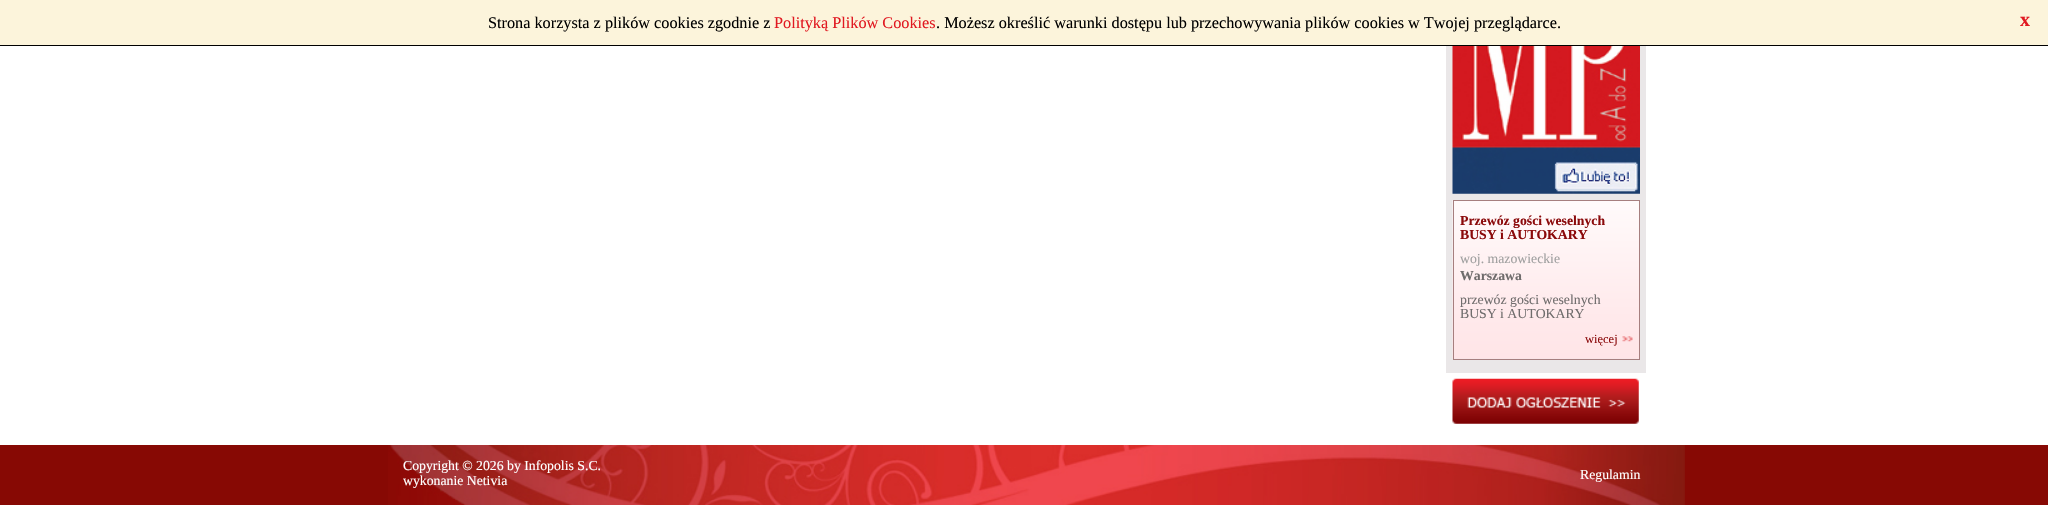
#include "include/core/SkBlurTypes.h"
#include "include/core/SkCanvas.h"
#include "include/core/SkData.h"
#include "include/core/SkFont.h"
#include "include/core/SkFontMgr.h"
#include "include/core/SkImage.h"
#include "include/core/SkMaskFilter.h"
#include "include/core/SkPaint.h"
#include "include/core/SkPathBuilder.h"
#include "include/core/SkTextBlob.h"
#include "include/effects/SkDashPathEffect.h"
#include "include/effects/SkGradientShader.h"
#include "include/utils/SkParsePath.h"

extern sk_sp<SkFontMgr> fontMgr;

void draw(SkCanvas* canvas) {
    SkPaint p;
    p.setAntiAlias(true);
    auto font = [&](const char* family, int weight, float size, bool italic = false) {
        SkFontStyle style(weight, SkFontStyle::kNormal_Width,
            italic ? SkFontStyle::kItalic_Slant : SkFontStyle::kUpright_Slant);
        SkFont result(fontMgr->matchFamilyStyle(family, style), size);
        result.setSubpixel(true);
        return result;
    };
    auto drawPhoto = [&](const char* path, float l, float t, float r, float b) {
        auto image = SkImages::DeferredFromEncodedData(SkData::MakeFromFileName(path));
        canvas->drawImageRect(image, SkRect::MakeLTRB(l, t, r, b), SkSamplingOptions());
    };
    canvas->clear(0xFFFFFFFF);
    p.setColor(0xFFFCF4DB);
    canvas->drawRect(SkRect::MakeLTRB(0, 0, 2048, 45), p);
    p.setColor(0xFF000000);
    canvas->drawRect(SkRect::MakeLTRB(0, 45, 2048, 46), p);
    auto font1 = font("Liberation Serif", 400, 16.25f);
    canvas->drawString("Strona korzysta z plików cookies zgodnie z", 488, 28, font1, p);
    p.setColor(0xFFE11921);
    canvas->drawString("Polityką Plików Cookies", 774, 28, font1, p);
    p.setColor(0xFF000000);
    canvas->drawString(". Możesz określić warunki dostępu lub przechowywania plików cookies w Twojej przeglądarce.", 936, 28, font1, p);
    auto font2 = font("Liberation Serif", 700, 20);
    p.setColor(0xFFE11921);
    canvas->drawString("x", 2020, 26, font2, p);
    p.setColor(0xFFEAE7E8);
    canvas->drawRect(SkRect::MakeLTRB(1446, 46, 1646, 373), p);
    drawPhoto("media/1.png", 1452, 46, 1640, 194);
    drawPhoto("media/2.png", 1452, 200, 1639, 359);
    p.setStyle(SkPaint::kStroke_Style);
    p.setStrokeWidth(1);
    p.setColor(0xFFA67F7F);
    canvas->drawRect(SkRect::MakeLTRB(1453.5f, 200.5f, 1639.5f, 359.5f), p);
    auto font3 = font("Liberation Serif", 700, 13.75f);
    p.setStyle(SkPaint::kFill_Style);
    p.setColor(0xFF8B0A0B);
    canvas->drawString("Przewóz gości weselnych", 1460, 225, font3, p);
    canvas->drawString("BUSY i AUTOKARY", 1460, 239, font3, p);
    auto font4 = font("Liberation Serif", 400, 13.75f);
    p.setColor(0xFFA0A0A0);
    canvas->drawString("woj. mazowieckie", 1460, 263, font4, p);
    p.setColor(0xFF6F6C6C);
    canvas->drawString("Warszawa", 1460, 280, font3, p);
    canvas->drawString("przewóz gości weselnych", 1460, 304, font4, p);
    canvas->drawString("BUSY i AUTOKARY", 1460, 318, font4, p);
    drawPhoto("media/3.png", 1622, 336, 1633, 342);
    auto font5 = font("Liberation Serif", 400, 12.5f);
    p.setColor(0xFF8B0A0B);
    canvas->drawString("więcej", 1585, 343, font5, p);
    drawPhoto("media/4.png", 1452, 378, 1639, 424);
    p.setColor(0xFF870904);
    canvas->drawRect(SkRect::MakeLTRB(0, 445, 2048, 505), p);
    drawPhoto("media/5.png", 388, 445, 1685, 505);
    p.setColor(0xFFFFFFFF);
    {
        const struct { const char* s; float x, y; } items[] = {
            {"Copyright © 2026 by Infopolis S.C.", 403, 470},
            {"wykonanie Netivia", 403, 485},
            {"Regulamin", 1580, 479},
        };
        for (auto [s, x, y] : items) {
            canvas->drawString(s, x, y, font4, p);
        }
    }
}
